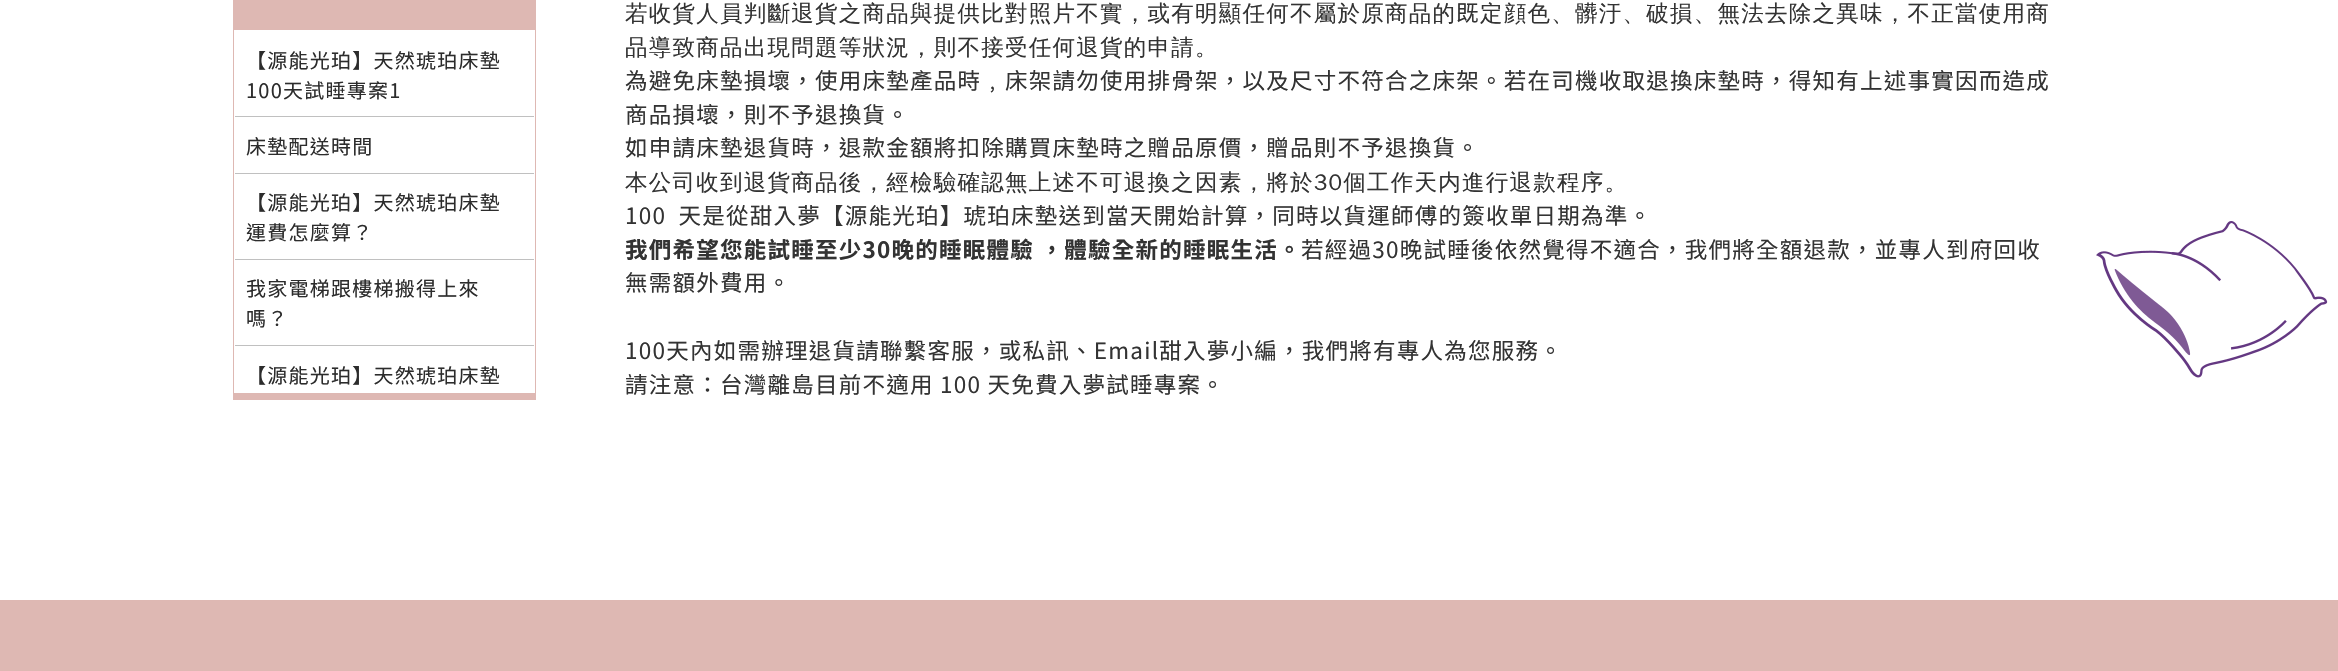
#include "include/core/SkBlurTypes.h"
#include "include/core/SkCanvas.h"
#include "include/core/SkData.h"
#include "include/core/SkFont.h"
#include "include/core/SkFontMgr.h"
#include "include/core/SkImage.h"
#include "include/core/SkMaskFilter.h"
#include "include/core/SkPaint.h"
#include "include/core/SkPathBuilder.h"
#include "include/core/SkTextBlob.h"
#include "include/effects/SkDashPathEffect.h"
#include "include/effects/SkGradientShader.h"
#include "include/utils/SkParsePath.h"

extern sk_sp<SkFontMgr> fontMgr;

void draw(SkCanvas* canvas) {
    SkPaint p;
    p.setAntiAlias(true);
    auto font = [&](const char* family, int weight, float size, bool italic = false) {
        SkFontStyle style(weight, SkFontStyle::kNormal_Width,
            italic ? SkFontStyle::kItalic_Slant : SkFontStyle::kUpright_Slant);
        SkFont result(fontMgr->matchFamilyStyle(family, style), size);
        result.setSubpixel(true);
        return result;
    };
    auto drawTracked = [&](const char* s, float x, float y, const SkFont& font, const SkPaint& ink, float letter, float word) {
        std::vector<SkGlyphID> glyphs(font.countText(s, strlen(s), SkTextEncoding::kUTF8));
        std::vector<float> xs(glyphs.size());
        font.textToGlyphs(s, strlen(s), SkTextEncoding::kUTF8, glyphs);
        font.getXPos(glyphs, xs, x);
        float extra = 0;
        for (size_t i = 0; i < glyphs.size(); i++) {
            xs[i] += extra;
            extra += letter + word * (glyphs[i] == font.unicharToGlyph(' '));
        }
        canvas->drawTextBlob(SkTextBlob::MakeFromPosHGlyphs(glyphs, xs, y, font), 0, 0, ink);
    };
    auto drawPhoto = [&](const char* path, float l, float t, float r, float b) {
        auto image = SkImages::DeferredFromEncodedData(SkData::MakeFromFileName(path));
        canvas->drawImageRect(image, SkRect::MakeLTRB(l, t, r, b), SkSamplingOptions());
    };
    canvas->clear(0xFFFFFFFF);
    {
        const struct { float l, t, r, b; SkColor color; } items[] = {
            {233, 0, 536, 30, 0xFFDEB8B3},
            {535, 29, 536, 400, 0xFFDEB8B3},
            {233, 393, 536, 400, 0xFFDEB8B3},
            {233, 29, 234, 400, 0xFFDEB8B3},
            {235, 116, 534, 117, 0xFFC0C0C0},
        };
        for (auto [l, t, r, b, color] : items) {
            p.setColor(color);
            canvas->drawRect(SkRect::MakeLTRB(l, t, r, b), p);
        }
    }
    auto font1 = font("Noto Sans TC", 400, 20);
    p.setColor(0xFF2C2C2C);
    drawTracked("【源能光珀】天然琥珀床墊", 246, 68, font1, p, 1.25f, 0);
    drawTracked("100天試睡專案1", 246, 98, font1, p, 1.25f, 0);
    p.setColor(0xFFC0C0C0);
    canvas->drawRect(SkRect::MakeLTRB(235, 173, 534, 174), p);
    p.setColor(0xFF2C2C2C);
    drawTracked("床墊配送時間", 246, 154, font1, p, 1.25f, 0);
    p.setColor(0xFFC0C0C0);
    canvas->drawRect(SkRect::MakeLTRB(235, 259, 534, 260), p);
    p.setColor(0xFF2C2C2C);
    drawTracked("【源能光珀】天然琥珀床墊", 246, 210, font1, p, 1.25f, 0);
    drawTracked("運費怎麼算？", 246, 240, font1, p, 1.25f, 0);
    p.setColor(0xFFC0C0C0);
    canvas->drawRect(SkRect::MakeLTRB(235, 345, 534, 346), p);
    p.setColor(0xFF2C2C2C);
    {
        const struct { const char* s; float x, y; } items[] = {
            {"我家電梯跟樓梯搬得上來", 246, 296},
            {"嗎？", 246, 326},
            {"【源能光珀】天然琥珀床墊", 246, 383},
        };
        for (auto [s, x, y] : items) {
            drawTracked(s, x, y, font1, p, 1.25f, 0);
        }
    }
    auto font2 = font("WenQuanYi Zen Hei", 500, 22.5f);
    p.setColor(0xFF333333);
    drawTracked("若收貨人員判斷退貨之商品與提供比對照片不實，或有明顯任何不屬於原商品的", 625, 21, font2, p, 1.25f, 0);
    auto font3 = font("Noto Sans TC", 400, 22.5f);
    drawTracked("既", 1456, 21, font3, p, 1.25f, 0);
    drawTracked("定顔色、髒汙、破損、無法去除之異味，不正當使用商", 1480, 21, font2, p, 1.25f, 0);
    drawTracked("品導致商品出現問題等狀況，則不接受任何退貨的申請。", 625, 55, font2, p, 1.25f, 0);
    {
        const struct { const char* s; float x, y; } items[] = {
            {"為避免床墊損壞，使用床墊產品時﹐床架請勿使用排骨架，以及尺寸不符合之床架。若在司機收取退換床墊時，得知有上述事實因而造成", 625, 89},
            {"商品損壞，則不予退換貨。", 625, 123},
            {"如申請床墊退貨時，退款金額將扣除購買床墊時之贈品原價，贈品則不予退換貨。", 625, 156},
        };
        for (auto [s, x, y] : items) {
            drawTracked(s, x, y, font3, p, 1.25f, 0);
        }
    }
    drawTracked("本公司收到退貨商品後，經檢驗確認無上述不可退換之因素，將於30個工作天内進行退款程序。", 625, 190, font2, p, 1.25f, 0);
    drawTracked("100 天是從甜入夢【源能光珀】琥珀床墊送到當天開始計算，同時以貨運師傅的簽收單日期為準。", 625, 224, font3, p, 1.25f, 6);
    auto font4 = font("Noto Sans TC", 700, 22.5f);
    drawTracked("我們希望您能試睡至少30晚的睡眠體驗 ，體驗全新的睡眠生活。", 625, 258, font4, p, 1.25f, 0);
    {
        const struct { const char* s; float x, y; } items[] = {
            {"若經過30晚試睡後依然覺得不適合，我們將全額退款，並專人到府回收", 1301, 258},
            {"無需額外費用。", 625, 291},
            {"100天內如需辦理退貨請聯繫客服，或私訊、Email甜入夢小編，我們將有專人為您服務。", 625, 359},
            {"請注意：台灣離島目前不適用 100 天免費入夢試睡專案。", 625, 393},
        };
        for (auto [s, x, y] : items) {
            drawTracked(s, x, y, font3, p, 1.25f, 0);
        }
    }
    drawPhoto("media/1.png", 2096, 221, 2328, 378);
    p.setColor(0xFFDEB8B3);
    canvas->drawRect(SkRect::MakeLTRB(0, 600, 2338, 671), p);
}
